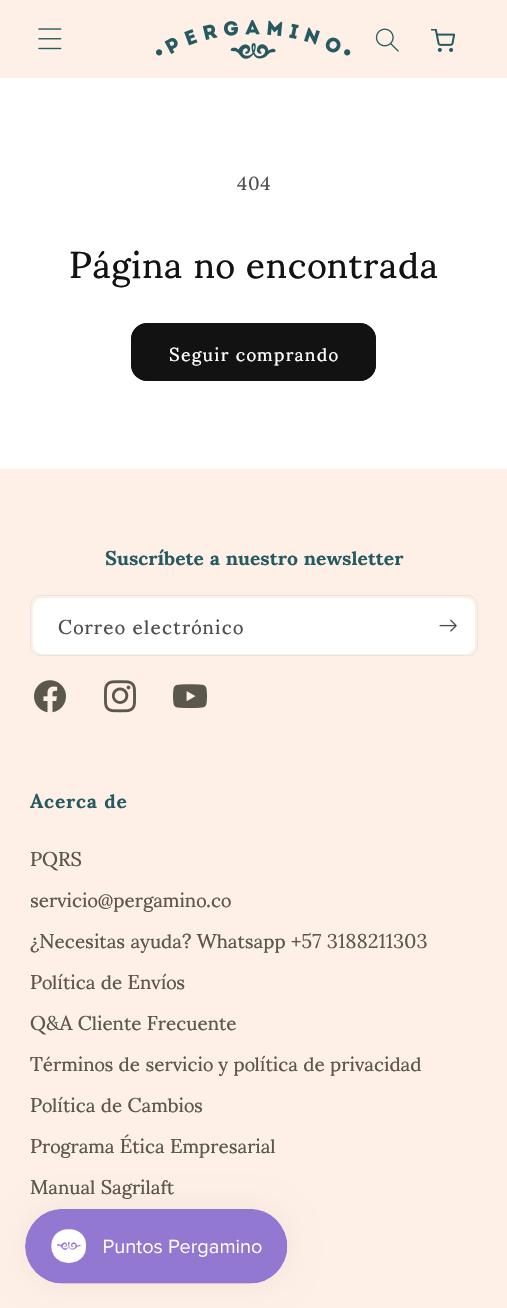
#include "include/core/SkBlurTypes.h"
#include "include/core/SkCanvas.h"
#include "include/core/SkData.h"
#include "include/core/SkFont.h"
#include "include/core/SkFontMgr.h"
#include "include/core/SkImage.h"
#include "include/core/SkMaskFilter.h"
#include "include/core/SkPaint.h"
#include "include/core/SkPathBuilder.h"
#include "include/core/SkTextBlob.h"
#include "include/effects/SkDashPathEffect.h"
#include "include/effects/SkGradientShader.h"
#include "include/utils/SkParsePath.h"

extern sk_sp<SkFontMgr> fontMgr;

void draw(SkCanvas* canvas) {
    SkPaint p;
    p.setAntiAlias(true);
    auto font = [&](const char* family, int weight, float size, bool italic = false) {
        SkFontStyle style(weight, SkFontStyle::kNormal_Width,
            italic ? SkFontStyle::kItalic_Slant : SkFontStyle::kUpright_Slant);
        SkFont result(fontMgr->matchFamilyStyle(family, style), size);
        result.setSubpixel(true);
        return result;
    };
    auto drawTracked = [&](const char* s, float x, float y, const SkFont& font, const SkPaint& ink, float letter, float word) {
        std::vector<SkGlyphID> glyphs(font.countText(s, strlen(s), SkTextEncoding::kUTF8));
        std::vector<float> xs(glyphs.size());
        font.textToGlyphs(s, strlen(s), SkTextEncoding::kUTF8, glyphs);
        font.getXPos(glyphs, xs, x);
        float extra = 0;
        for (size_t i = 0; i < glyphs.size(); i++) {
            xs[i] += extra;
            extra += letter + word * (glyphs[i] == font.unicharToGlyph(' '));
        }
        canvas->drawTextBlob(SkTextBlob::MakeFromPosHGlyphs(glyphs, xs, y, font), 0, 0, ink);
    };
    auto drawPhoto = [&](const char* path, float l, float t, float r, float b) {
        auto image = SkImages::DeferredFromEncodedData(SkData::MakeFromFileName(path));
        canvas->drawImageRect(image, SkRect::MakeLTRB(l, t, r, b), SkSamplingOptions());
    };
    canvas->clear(0xFFFFFFFF);
    p.setColor(0xFFFFF0E7);
    canvas->drawRect(SkRect::MakeLTRB(0, 0, 507, 78), p);
    drawPhoto("media/1.png", 38, 28, 62, 50);
    drawPhoto("media/2.png", 156, 20, 351, 59);
    drawPhoto("media/3.png", 375, 28, 399, 52);
    drawPhoto("media/4.png", 431, 29, 455, 52);
    auto font1 = font("Sumana", 400, 18.75f);
    p.setColor(0xFF4D4D4D);
    drawTracked("404", 237, 190, font1, p, 0.75f, 0);
    auto font2 = font("Sumana", 400, 37.5f);
    p.setColor(0xFF121212);
    drawTracked("Página no encontrada", 69, 278, font2, p, 0.75f, 0);
    canvas->drawRoundRect(SkRect::MakeLTRB(131, 323, 376, 381), 16, 16, p);
    p.setStyle(SkPaint::kStroke_Style);
    p.setStrokeWidth(1);
    canvas->drawRoundRect(SkRect::MakeLTRB(131.5f, 323.5f, 375.5f, 380.5f), 15.5f, 15.5f, p);
    p.setStyle(SkPaint::kFill_Style);
    p.setColor(0xFFFFFFFF);
    drawTracked("Seguir comprando", 169, 361, font1, p, 1.25f, 0);
    p.setColor(0xFFFFF0E7);
    canvas->drawRect(SkRect::MakeLTRB(0, 469, 507, 1308), p);
    auto font3 = font("Sumana", 700, 20);
    p.setColor(0xFF255A60);
    canvas->drawString("Suscríbete a nuestro newsletter", 105, 565, font3, p);
    p.setStyle(SkPaint::kStroke_Style);
    p.setColor(0xFFE5E5E5);
    canvas->drawRoundRect(SkRect::MakeLTRB(30.5f, 595.5f, 477.5f, 655.5f), 9.5f, 9.5f, p);
    p.setStyle(SkPaint::kFill_Style);
    p.setColor(0xFFFFFFFF);
    canvas->drawRoundRect(SkRect::MakeLTRB(33, 598, 475, 654), 10, 10, p);
    auto font4 = font("Sumana", 400, 20);
    p.setColor(0xFF4D4D4D);
    drawTracked("Correo electrónico", 58, 634, font4, p, 1.25f, 0);
    drawPhoto("media/5.png", 439, 619, 457, 632);
    drawPhoto("media/6.png", 34, 680, 66, 713);
    drawPhoto("media/7.png", 104, 680, 136, 713);
    drawPhoto("media/8.png", 173, 684, 207, 709);
    p.setColor(0xFF255A60);
    drawTracked("Acerca de", 30, 808, font3, p, 0.75f, 0);
    p.setColor(0xFF5B574C);
    {
        const struct { const char* s; float x, y; } items[] = {
            {"PQRS", 30, 866},
            {"servicio@pergamino.co", 30, 907},
            {"¿Necesitas ayuda? Whatsapp +57 3188211303", 30, 948},
            {"Política de Envíos", 30, 989},
            {"Q&A Cliente Frecuente", 30, 1030},
            {"Términos de servicio y política de privacidad", 30, 1071},
            {"Política de Cambios", 30, 1112},
            {"Programa Ética Empresarial", 30, 1153},
            {"Manual Sagrilaft", 30, 1194},
        };
        for (auto [s, x, y] : items) {
            canvas->drawString(s, x, y, font4, p);
        }
    }
    p.setColor(0x0D000000);
    p.setMaskFilter(SkMaskFilter::MakeBlur(kNormal_SkBlurStyle, 15.5f));
    canvas->drawRoundRect(SkRect::MakeLTRB(25, 1209, 288, 1284), 37.5f, 37.5f, p);
    p.setMaskFilter(nullptr);
    drawPhoto("media/9.png", 25, 1209, 288, 1284);
}
